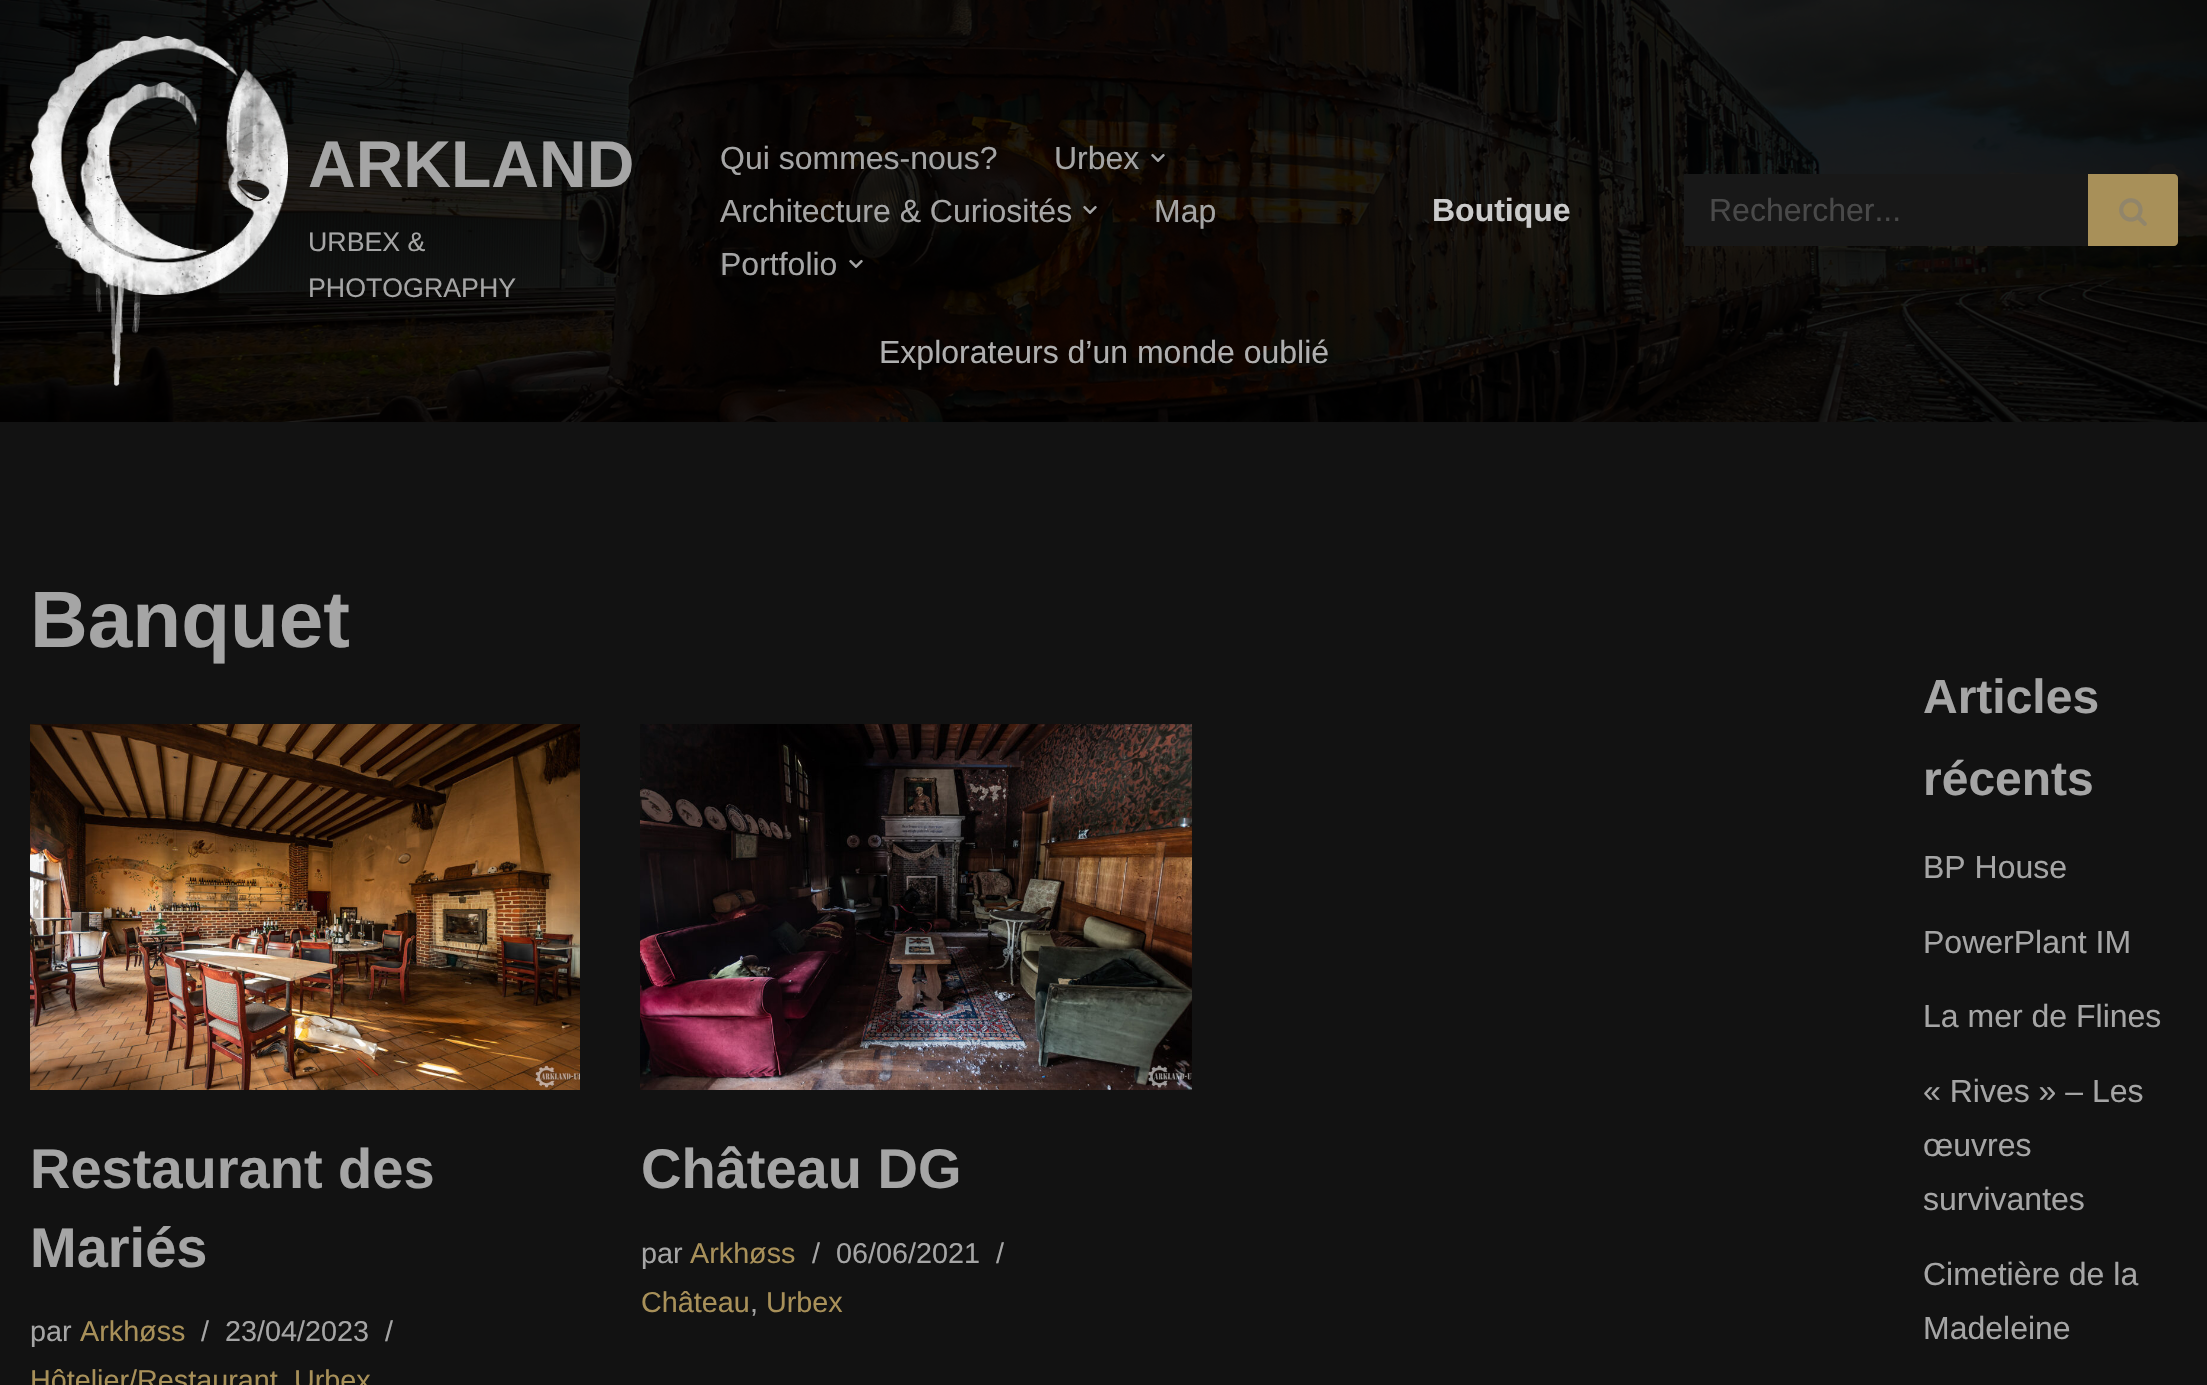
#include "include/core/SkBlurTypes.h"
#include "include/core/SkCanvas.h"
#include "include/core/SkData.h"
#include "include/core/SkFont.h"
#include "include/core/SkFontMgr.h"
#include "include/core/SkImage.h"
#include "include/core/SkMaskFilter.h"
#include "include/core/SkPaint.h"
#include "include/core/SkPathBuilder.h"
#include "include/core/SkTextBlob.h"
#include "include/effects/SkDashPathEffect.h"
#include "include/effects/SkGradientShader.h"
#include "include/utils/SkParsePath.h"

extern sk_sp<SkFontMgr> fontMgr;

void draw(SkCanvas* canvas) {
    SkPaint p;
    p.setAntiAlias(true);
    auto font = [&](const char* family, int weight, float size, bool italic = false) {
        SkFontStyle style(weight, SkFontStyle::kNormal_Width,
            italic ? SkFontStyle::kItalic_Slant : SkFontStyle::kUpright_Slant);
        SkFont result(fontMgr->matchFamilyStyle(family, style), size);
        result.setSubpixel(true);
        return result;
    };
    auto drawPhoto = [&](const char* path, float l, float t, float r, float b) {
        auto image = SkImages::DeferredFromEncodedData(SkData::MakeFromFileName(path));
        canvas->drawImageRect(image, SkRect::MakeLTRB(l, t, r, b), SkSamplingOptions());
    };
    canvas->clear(0xFF121212);
    drawPhoto("media/1.png", 0, 0, 2207, 422);
    drawPhoto("media/2.png", 30, 36, 288, 386);
    auto font1 = font("Liberation Sans", 700, 66);
    p.setColor(0xFFA5A5A5);
    canvas->drawString("ARKLAND", 308, 187, font1, p);
    auto font2 = font("Liberation Sans", 400, 26.75f);
    canvas->drawString("URBEX &", 308, 251, font2, p);
    canvas->drawString("PHOTOGRAPHY", 308, 297, font2, p);
    auto font3 = font("Liberation Sans", 400, 32);
    canvas->drawString("Qui sommes-nous?", 720, 169, font3, p);
    canvas->drawString("Urbex", 1054, 169, font3, p);
    drawPhoto("media/3.png", 1151, 153, 1165, 162);
    canvas->drawString("Architecture & Curiosités", 720, 222, font3, p);
    drawPhoto("media/4.png", 1083, 205, 1097, 214);
    canvas->drawString("Map", 1154, 222, font3, p);
    canvas->drawString("Portfolio", 720, 275, font3, p);
    drawPhoto("media/5.png", 849, 259, 863, 268);
    auto font4 = font("Liberation Sans", 700, 32);
    p.setColor(0xFFCACACA);
    canvas->drawString("Boutique", 1432, 221, font4, p);
    p.setColor(0xFF181818);
    canvas->drawRect(SkRect::MakeLTRB(1684, 174, 2088, 246), p);
    p.setColor(0xFF494949);
    canvas->drawString("Rechercher...", 1709, 221, font3, p);
    p.setColor(0xFFA89059);
    canvas->drawPath(SkPathBuilder().moveTo(2088, 174).lineTo(2174, 174).cubicTo(2176, 174, 2178, 176, 2178, 178).lineTo(2178, 242).cubicTo(2178, 244, 2176, 246, 2174, 246).lineTo(2088, 246).close().detach(), p);
    drawPhoto("media/6.png", 2119, 198, 2147, 226);
    p.setColor(0xFFAFAFAF);
    canvas->drawString("Explorateurs d’un monde oublié", 879, 363, font3, p);
    auto font5 = font("Liberation Sans", 700, 80);
    p.setColor(0xFFA5A5A5);
    canvas->drawString("Banquet", 30, 647, font5, p);
    drawPhoto("media/7.png", 30, 724, 580, 1090);
    auto font6 = font("Liberation Sans", 700, 56);
    canvas->drawString("Restaurant des", 30, 1188, font6, p);
    canvas->drawString("Mariés", 30, 1267, font6, p);
    auto font7 = font("Liberation Sans", 400, 28.75f);
    canvas->drawString("par", 30, 1341, font7, p);
    p.setColor(0xFFA89059);
    canvas->drawString("Arkhøss", 80, 1341, font7, p);
    p.setColor(0xFFA5A5A5);
    {
        const struct { const char* s; float x, y; } items[] = {
            {"/", 201, 1341},
            {"23/04/2023", 225, 1341},
            {"/", 385, 1341},
        };
        for (auto [s, x, y] : items) {
            canvas->drawString(s, x, y, font7, p);
        }
    }
    p.setColor(0xFFA89059);
    canvas->drawString("Hôtelier/Restaurant", 30, 1390, font7, p);
    canvas->drawString("Urbex", 294, 1390, font7, p);
    drawPhoto("media/8.png", 640, 724, 1192, 1090);
    p.setColor(0xFFA5A5A5);
    canvas->drawString("Château DG", 641, 1188, font6, p);
    canvas->drawString("par", 641, 1263, font7, p);
    p.setColor(0xFFA89059);
    canvas->drawString("Arkhøss", 690, 1263, font7, p);
    p.setColor(0xFFA5A5A5);
    {
        const struct { const char* s; float x, y; } items[] = {
            {"/", 812, 1263},
            {"06/06/2021", 836, 1263},
            {"/", 996, 1263},
        };
        for (auto [s, x, y] : items) {
            canvas->drawString(s, x, y, font7, p);
        }
    }
    p.setColor(0xFFA89059);
    canvas->drawString("Château", 641, 1312, font7, p);
    p.setColor(0xFFA5A5A5);
    canvas->drawString(",", 750, 1312, font7, p);
    p.setColor(0xFFA89059);
    canvas->drawString("Urbex", 766, 1312, font7, p);
    auto font8 = font("Liberation Sans", 700, 48);
    p.setColor(0xFFA5A5A5);
    canvas->drawString("Articles", 1923, 713, font8, p);
    canvas->drawString("récents", 1923, 795, font8, p);
    {
        const struct { const char* s; float x, y; } items[] = {
            {"BP House", 1923, 878},
            {"PowerPlant IM", 1923, 953},
            {"La mer de Flines", 1923, 1027},
            {"« Rives » – Les", 1923, 1102},
            {"œuvres", 1923, 1156},
            {"survivantes", 1923, 1210},
            {"Cimetière de la", 1923, 1285},
            {"Madeleine", 1923, 1339},
        };
        for (auto [s, x, y] : items) {
            canvas->drawString(s, x, y, font3, p);
        }
    }
}
